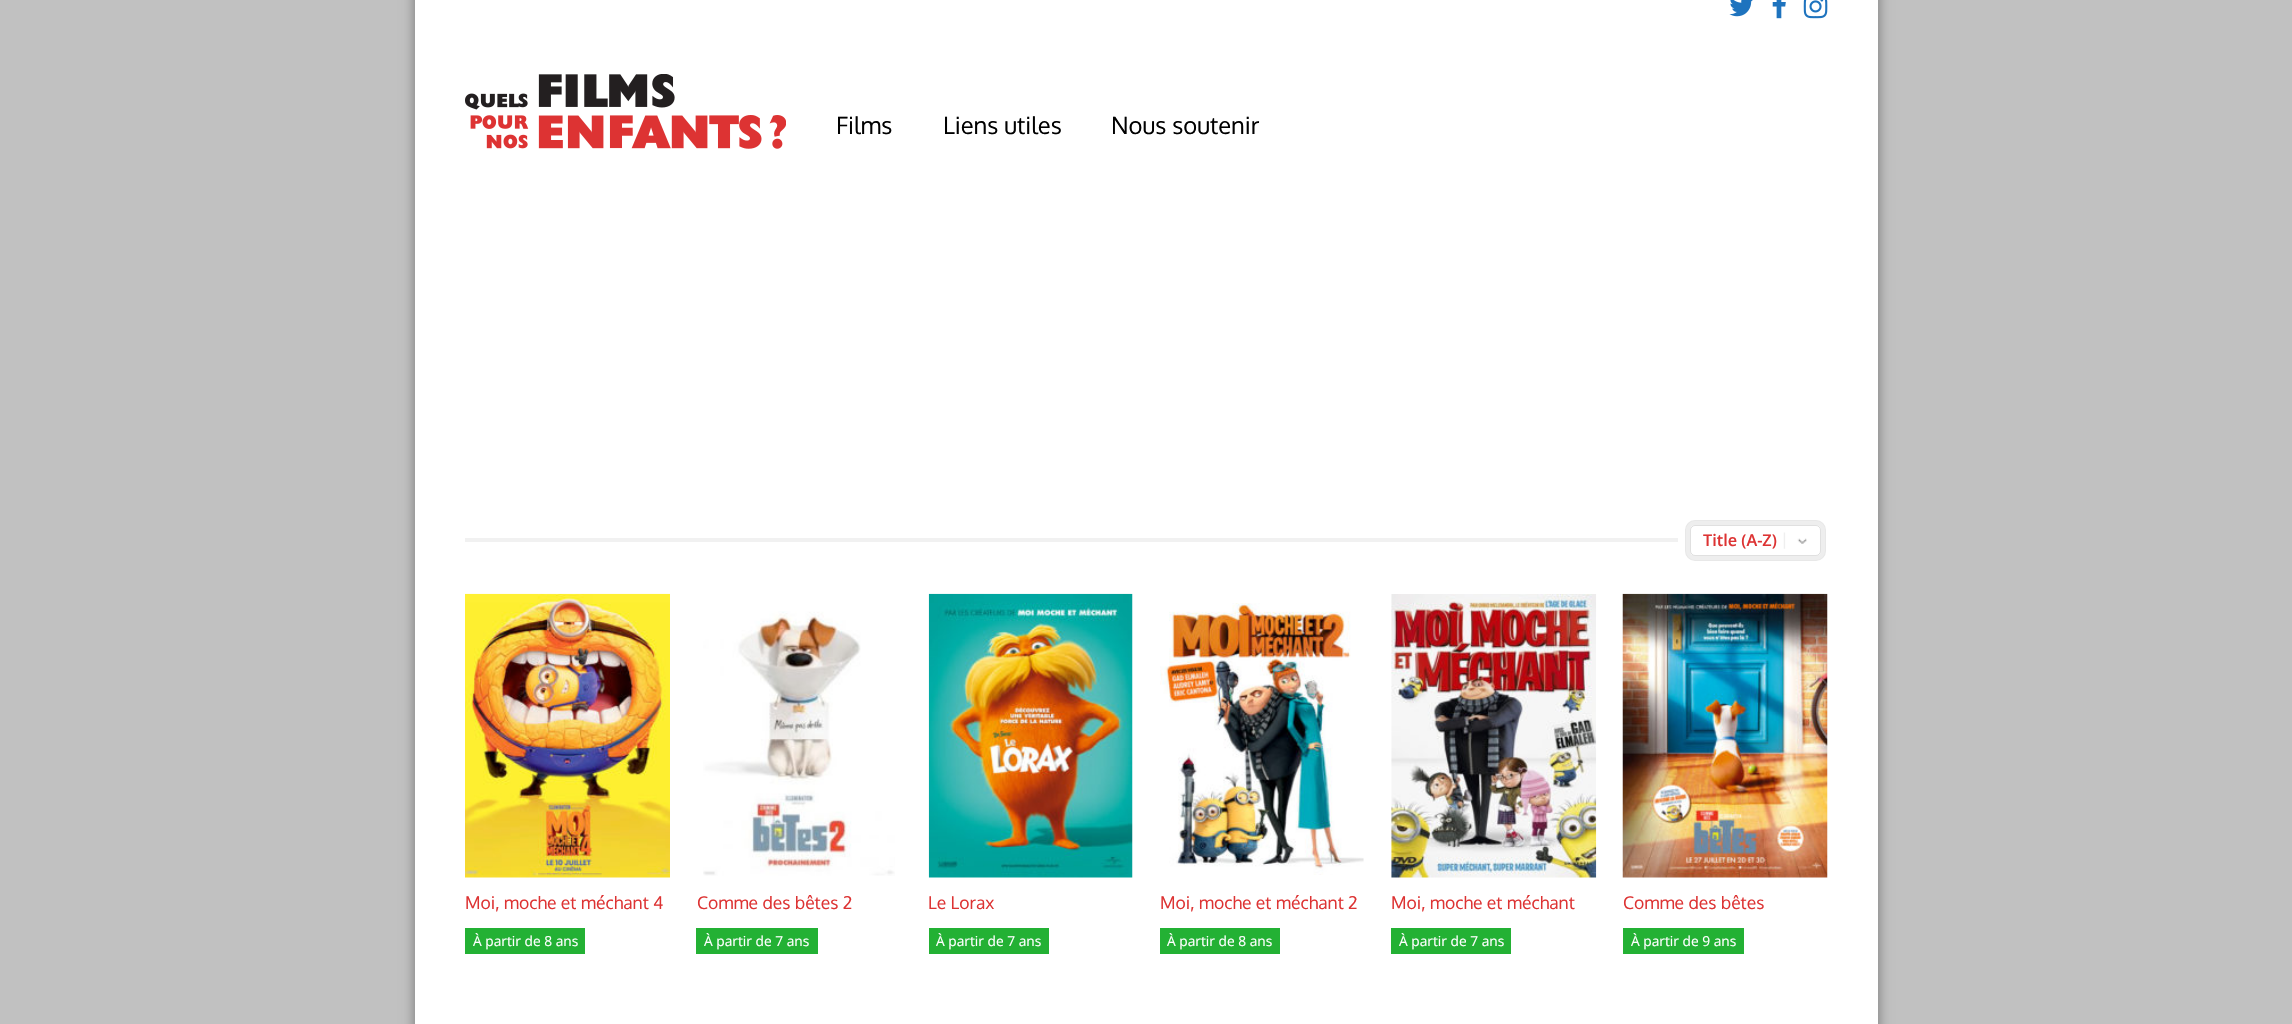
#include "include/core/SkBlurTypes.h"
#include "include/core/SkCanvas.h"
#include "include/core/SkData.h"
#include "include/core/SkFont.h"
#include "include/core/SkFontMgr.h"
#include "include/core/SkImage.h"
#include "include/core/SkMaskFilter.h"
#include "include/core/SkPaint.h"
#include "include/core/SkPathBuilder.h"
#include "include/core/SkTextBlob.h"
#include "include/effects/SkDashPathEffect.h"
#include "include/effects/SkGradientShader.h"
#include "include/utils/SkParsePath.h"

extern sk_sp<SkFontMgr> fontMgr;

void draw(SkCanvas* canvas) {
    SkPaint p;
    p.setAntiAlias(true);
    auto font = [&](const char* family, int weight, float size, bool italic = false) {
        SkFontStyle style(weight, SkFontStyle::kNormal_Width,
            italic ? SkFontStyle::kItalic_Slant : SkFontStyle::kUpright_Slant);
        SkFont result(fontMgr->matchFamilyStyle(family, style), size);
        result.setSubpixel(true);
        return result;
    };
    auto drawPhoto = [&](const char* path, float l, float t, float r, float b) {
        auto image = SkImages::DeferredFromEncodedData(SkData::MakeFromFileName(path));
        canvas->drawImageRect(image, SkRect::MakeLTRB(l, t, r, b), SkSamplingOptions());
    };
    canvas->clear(0xFFC1C1C1);
    p.setColor(0x66000000);
    p.setMaskFilter(SkMaskFilter::MakeBlur(kNormal_SkBlurStyle, 6));
    canvas->drawRect(SkRect::MakeLTRB(415, -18, 1878, 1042), p);
    p.setMaskFilter(nullptr);
    p.setColor(0xFFFFFFFF);
    canvas->drawRect(SkRect::MakeLTRB(415, 0, 1878, 1024), p);
    drawPhoto("media/1.png", 1729, 0, 1753, 17);
    drawPhoto("media/2.png", 1772, 0, 1786, 19);
    drawPhoto("media/3.png", 1803, 0, 1828, 19);
    drawPhoto("media/4.png", 465, 74, 786, 149);
    auto font1 = font("Oxygen", 400, 23.75f);
    p.setColor(0xFF000000);
    {
        const struct { const char* s; float x, y; } items[] = {
            {"Films", 836, 134},
            {"Liens utiles", 943, 134},
            {"Nous soutenir", 1111, 134},
        };
        for (auto [s, x, y] : items) {
            canvas->drawString(s, x, y, font1, p);
        }
    }
    p.setColor(0xFFF1F1F1);
    canvas->drawRect(SkRect::MakeLTRB(465, 538, 1678, 542), p);
    p.setStyle(SkPaint::kStroke_Style);
    p.setStrokeWidth(5);
    p.setColor(0xFFE8E8E8);
    canvas->drawRoundRect(SkRect::MakeLTRB(1687.5f, 522.5f, 1823.5f, 558.5f), 7.5f, 7.5f, p);
    p.setStrokeWidth(4);
    p.setColor(0x40FFFFFF);
    canvas->drawRoundRect(SkRect::MakeLTRB(1688, 523, 1823, 558), 7, 7, p);
    p.setStyle(SkPaint::kFill_Style);
    p.setColor(0xFFFFFFFF);
    canvas->drawRoundRect(SkRect::MakeLTRB(1690, 525, 1821, 556), 5, 5, p);
    drawPhoto("media/5.png", 1783, 532, 1807, 549);
    p.setStyle(SkPaint::kStroke_Style);
    p.setStrokeWidth(1);
    p.setColor(0x1F000000);
    canvas->drawRoundRect(SkRect::MakeLTRB(1690.5f, 525.5f, 1820.5f, 555.5f), 4.5f, 4.5f, p);
    auto font2 = font("Open Sans", 600, 16.25f);
    p.setStyle(SkPaint::kFill_Style);
    p.setColor(0xFFDD3333);
    canvas->drawString("Title (A-Z)", 1703, 546, font2, p);
    drawPhoto("media/6.png", 465, 593, 670, 878);
    auto font3 = font("Oxygen", 400, 17.5f);
    canvas->drawString("Moi, moche et méchant 4", 465, 909, font3, p);
    p.setColor(0xFF23B134);
    canvas->drawRect(SkRect::MakeLTRB(465, 928, 585, 954), p);
    auto font4 = font("Open Sans", 400, 13.75f);
    p.setColor(0xFFFFFFFF);
    canvas->drawString("À partir de 8 ans", 473, 946, font4, p);
    drawPhoto("media/7.png", 703, 611, 895, 876);
    p.setColor(0xFFDD3333);
    canvas->drawString("Comme des bêtes 2", 697, 909, font3, p);
    p.setColor(0xFF23B134);
    canvas->drawRect(SkRect::MakeLTRB(696, 928, 818, 954), p);
    p.setColor(0xFFFFFFFF);
    canvas->drawString("À partir de 7 ans", 704, 946, font4, p);
    drawPhoto("media/8.png", 928, 593, 1133, 878);
    p.setColor(0xFFDD3333);
    canvas->drawString("Le Lorax", 928, 909, font3, p);
    p.setColor(0xFF23B134);
    canvas->drawRect(SkRect::MakeLTRB(929, 928, 1049, 954), p);
    p.setColor(0xFFFFFFFF);
    canvas->drawString("À partir de 7 ans", 936, 946, font4, p);
    drawPhoto("media/9.png", 1160, 603, 1364, 875);
    p.setColor(0xFFDD3333);
    canvas->drawString("Moi, moche et méchant 2", 1160, 909, font3, p);
    p.setColor(0xFF23B134);
    canvas->drawRect(SkRect::MakeLTRB(1160, 928, 1280, 954), p);
    p.setColor(0xFFFFFFFF);
    canvas->drawString("À partir de 8 ans", 1167, 946, font4, p);
    drawPhoto("media/10.png", 1391, 594, 1597, 878);
    p.setColor(0xFFDD3333);
    canvas->drawString("Moi, moche et méchant", 1391, 909, font3, p);
    p.setColor(0xFF23B134);
    canvas->drawRect(SkRect::MakeLTRB(1391, 928, 1511, 954), p);
    p.setColor(0xFFFFFFFF);
    canvas->drawString("À partir de 7 ans", 1399, 946, font4, p);
    drawPhoto("media/11.png", 1622, 593, 1828, 878);
    p.setColor(0xFFDD3333);
    canvas->drawString("Comme des bêtes", 1623, 909, font3, p);
    p.setColor(0xFF23B134);
    canvas->drawRect(SkRect::MakeLTRB(1623, 928, 1744, 954), p);
    p.setColor(0xFFFFFFFF);
    canvas->drawString("À partir de 9 ans", 1631, 946, font4, p);
}
